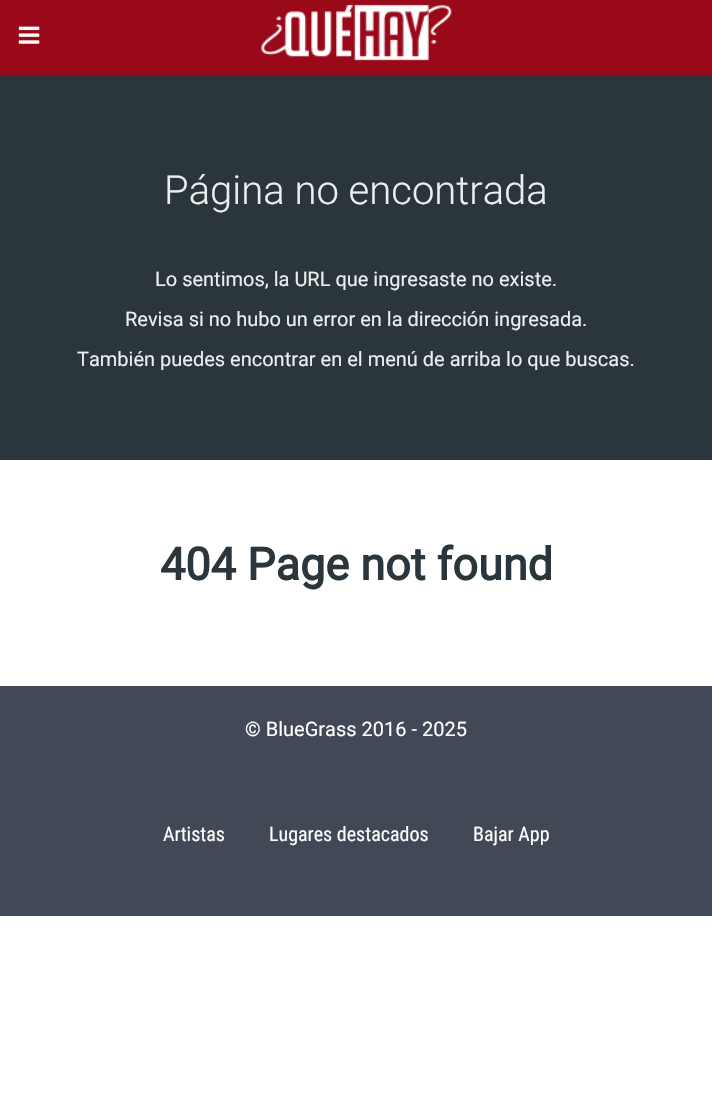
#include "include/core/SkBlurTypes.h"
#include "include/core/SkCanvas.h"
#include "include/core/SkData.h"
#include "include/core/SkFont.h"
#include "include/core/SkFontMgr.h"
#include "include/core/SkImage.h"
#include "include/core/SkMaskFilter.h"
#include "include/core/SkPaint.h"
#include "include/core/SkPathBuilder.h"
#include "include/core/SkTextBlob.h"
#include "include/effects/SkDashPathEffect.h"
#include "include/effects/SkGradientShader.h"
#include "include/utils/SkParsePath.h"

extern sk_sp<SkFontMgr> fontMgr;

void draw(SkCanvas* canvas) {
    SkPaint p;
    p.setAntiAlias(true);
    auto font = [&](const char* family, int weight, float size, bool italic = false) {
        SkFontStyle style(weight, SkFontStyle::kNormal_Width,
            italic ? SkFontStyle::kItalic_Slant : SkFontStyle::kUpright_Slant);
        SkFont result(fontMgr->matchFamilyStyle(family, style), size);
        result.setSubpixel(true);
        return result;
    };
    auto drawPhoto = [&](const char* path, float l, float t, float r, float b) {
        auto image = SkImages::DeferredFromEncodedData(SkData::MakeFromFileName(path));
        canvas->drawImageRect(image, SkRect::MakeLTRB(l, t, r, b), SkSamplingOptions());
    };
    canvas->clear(0xFFFFFFFF);
    p.setColor(0xFF99091A);
    canvas->drawRect(SkRect::MakeLTRB(0, 0, 712, 75), p);
    drawPhoto("media/1.png", 18, 26, 40, 44);
    drawPhoto("media/2.png", 261, 4, 452, 61);
    p.setColor(0xFF2A363B);
    canvas->drawRect(SkRect::MakeLTRB(0, 75, 712, 460), p);
    auto font1 = font("Roboto", 300, 40);
    p.setColor(0xFFECEEEF);
    canvas->drawString("Página no encontrada", 164, 204, font1, p);
    auto font2 = font("Roboto", 400, 20);
    {
        const struct { const char* s; float x, y; } items[] = {
            {"Lo sentimos, la URL que ingresaste no existe.", 155, 286},
            {"Revisa si no hubo un error en la dirección ingresada.", 125, 326},
            {"También puedes encontrar en el menú de arriba lo que buscas.", 77, 366},
        };
        for (auto [s, x, y] : items) {
            canvas->drawString(s, x, y, font2, p);
        }
    }
    auto font3 = font("Roboto", 700, 45);
    p.setColor(0xFF2A363B);
    canvas->drawString("404 Page not found", 160, 580, font3, p);
    p.setColor(0xFF414856);
    canvas->drawRect(SkRect::MakeLTRB(0, 686, 712, 916), p);
    p.setColor(0xFFFFFFFF);
    canvas->drawString("© BlueGrass 2016 - 2025", 245, 736, font2, p);
    auto font4 = font("Roboto Condensed", 400, 20);
    {
        const struct { const char* s; float x, y; } items[] = {
            {"Artistas", 163, 841},
            {"Lugares destacados", 269, 841},
            {"Bajar App", 473, 841},
        };
        for (auto [s, x, y] : items) {
            canvas->drawString(s, x, y, font4, p);
        }
    }
}
